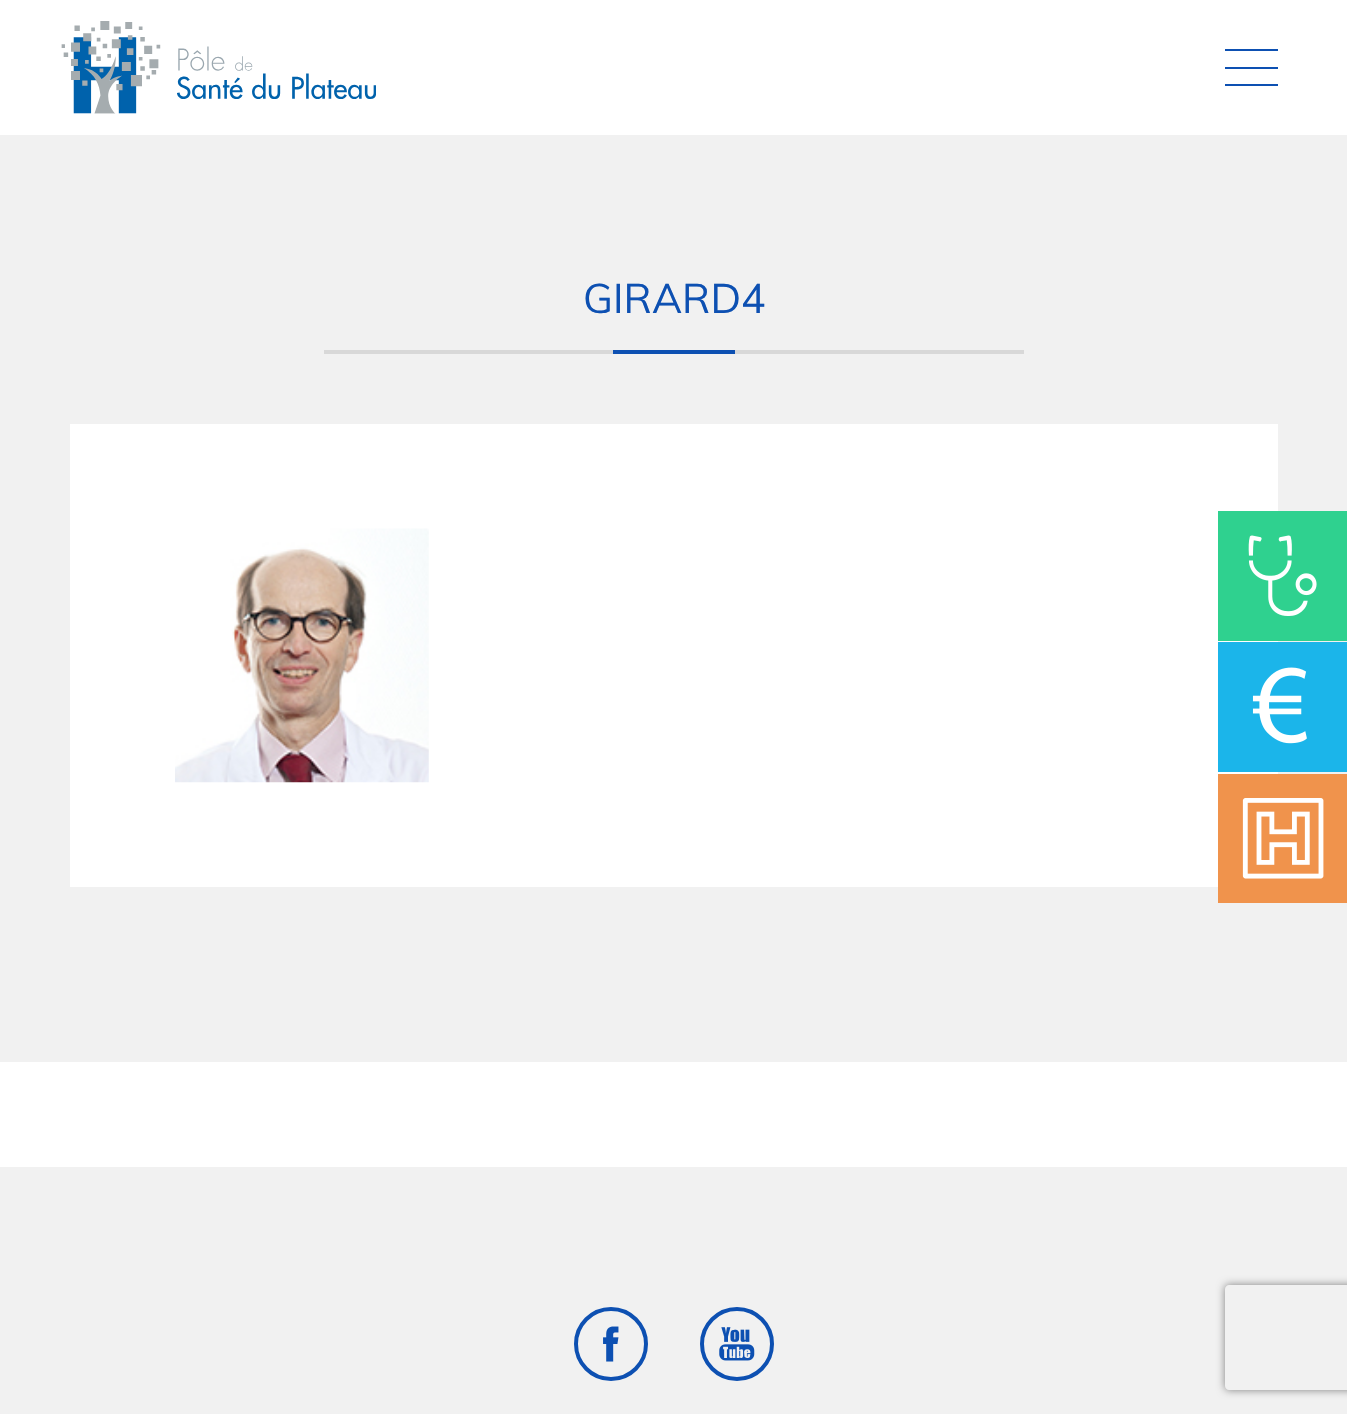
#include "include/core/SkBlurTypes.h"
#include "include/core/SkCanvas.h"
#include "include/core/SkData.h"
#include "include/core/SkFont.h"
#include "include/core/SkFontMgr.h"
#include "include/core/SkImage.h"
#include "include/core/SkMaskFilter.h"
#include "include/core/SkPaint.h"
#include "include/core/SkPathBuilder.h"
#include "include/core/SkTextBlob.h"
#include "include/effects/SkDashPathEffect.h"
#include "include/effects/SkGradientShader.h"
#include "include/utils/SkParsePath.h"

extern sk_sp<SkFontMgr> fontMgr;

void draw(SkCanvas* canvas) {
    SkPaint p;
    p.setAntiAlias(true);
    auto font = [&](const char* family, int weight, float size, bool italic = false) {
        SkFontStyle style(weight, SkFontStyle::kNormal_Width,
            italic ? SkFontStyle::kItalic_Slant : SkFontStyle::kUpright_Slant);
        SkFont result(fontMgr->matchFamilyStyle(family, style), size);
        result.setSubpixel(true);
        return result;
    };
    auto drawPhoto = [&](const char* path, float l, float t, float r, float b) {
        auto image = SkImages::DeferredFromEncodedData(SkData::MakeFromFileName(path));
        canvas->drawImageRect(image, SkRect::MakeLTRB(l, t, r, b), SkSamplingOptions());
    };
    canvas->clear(0xFFFFFFFF);
    drawPhoto("media/1.png", 61, 21, 376, 114);
    {
        const struct { float l, t, r, b; SkColor color; } items[] = {
            {1225, 67, 1278, 69, 0xFF0D50B2},
            {1225, 49, 1278, 51, 0xFF0D50B2},
            {1225, 84, 1278, 86, 0xFF0D50B2},
            {0, 135, 1347, 1062, 0xFFF1F1F1},
        };
        for (auto [l, t, r, b, color] : items) {
            p.setColor(color);
            canvas->drawRect(SkRect::MakeLTRB(l, t, r, b), p);
        }
    }
    auto font1 = font("Muli", 400, 41);
    p.setColor(0xFF0D50B2);
    canvas->drawString("GIRARD4", 583, 313, font1, p);
    {
        const struct { float l, t, r, b; SkColor color; } items[] = {
            {324, 350, 1024, 354, 0xFFD8D8D8},
            {613, 350, 735, 354, 0xFF0D50B2},
            {70, 424, 1278, 887, 0xFFFFFFFF},
        };
        for (auto [l, t, r, b, color] : items) {
            p.setColor(color);
            canvas->drawRect(SkRect::MakeLTRB(l, t, r, b), p);
        }
    }
    drawPhoto("media/2.png", 175, 528, 429, 783);
    p.setColor(0xFF2FD18F);
    canvas->drawRect(SkRect::MakeLTRB(1218, 511, 1347, 641), p);
    drawPhoto("media/3.png", 1248, 535, 1317, 616);
    p.setColor(0xFF1BB5EA);
    canvas->drawRect(SkRect::MakeLTRB(1218, 642, 1347, 772), p);
    drawPhoto("media/4.png", 1252, 667, 1307, 744);
    p.setColor(0xFFF0934C);
    canvas->drawRect(SkRect::MakeLTRB(1218, 774, 1347, 903), p);
    drawPhoto("media/5.png", 1242, 798, 1324, 879);
    p.setColor(0xFFF1F1F1);
    canvas->drawRect(SkRect::MakeLTRB(0, 1167, 1347, 1414), p);
    p.setStyle(SkPaint::kStroke_Style);
    p.setStrokeWidth(4);
    p.setColor(0xFF0D50B2);
    canvas->drawCircle(611, 1344, 35, p);
    drawPhoto("media/6.png", 603, 1326, 619, 1362);
    canvas->drawCircle(737, 1344, 35, p);
    drawPhoto("media/7.png", 719, 1327, 755, 1361);
    canvas->save();
    canvas->clipPath(SkPathBuilder(SkPathFillType::kEvenOdd).moveTo(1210, 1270).lineTo(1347, 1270).lineTo(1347, 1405).lineTo(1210, 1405).close().moveTo(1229, 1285).lineTo(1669, 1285).cubicTo(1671, 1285, 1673, 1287, 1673, 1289).lineTo(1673, 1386).cubicTo(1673, 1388, 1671, 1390, 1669, 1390).lineTo(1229, 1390).cubicTo(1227, 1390, 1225, 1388, 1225, 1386).lineTo(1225, 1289).cubicTo(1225, 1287, 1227, 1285, 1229, 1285).close().detach(), true);
    p.setStyle(SkPaint::kFill_Style);
    p.setColor(0xFF808080);
    p.setMaskFilter(SkMaskFilter::MakeBlur(kNormal_SkBlurStyle, 4.5f));
    canvas->drawRoundRect(SkRect::MakeLTRB(1225, 1285, 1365, 1390), 4, 4, p);
    p.setMaskFilter(nullptr);
    canvas->restore();
}
